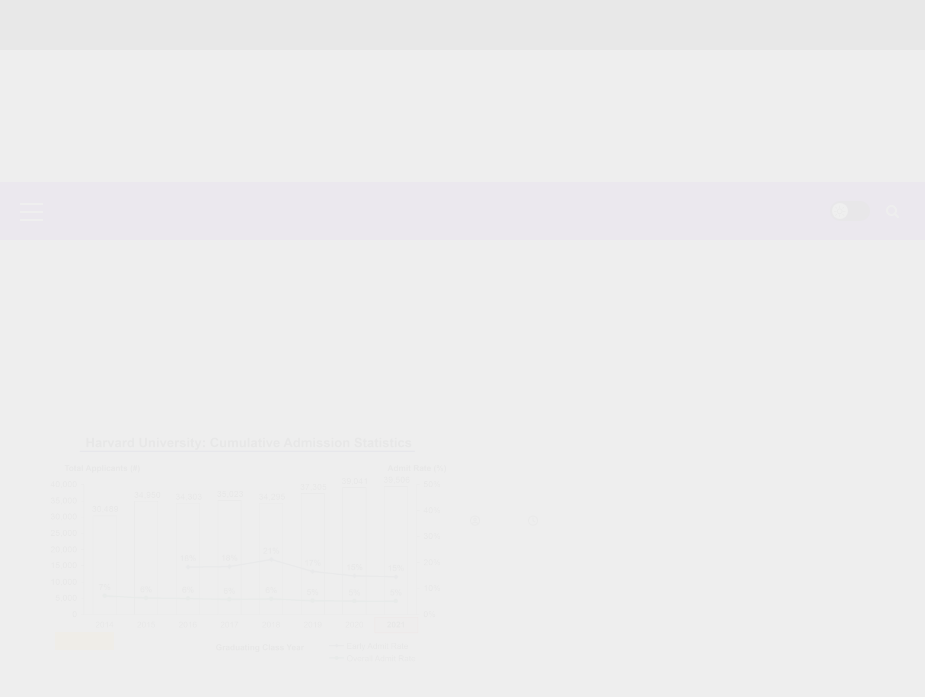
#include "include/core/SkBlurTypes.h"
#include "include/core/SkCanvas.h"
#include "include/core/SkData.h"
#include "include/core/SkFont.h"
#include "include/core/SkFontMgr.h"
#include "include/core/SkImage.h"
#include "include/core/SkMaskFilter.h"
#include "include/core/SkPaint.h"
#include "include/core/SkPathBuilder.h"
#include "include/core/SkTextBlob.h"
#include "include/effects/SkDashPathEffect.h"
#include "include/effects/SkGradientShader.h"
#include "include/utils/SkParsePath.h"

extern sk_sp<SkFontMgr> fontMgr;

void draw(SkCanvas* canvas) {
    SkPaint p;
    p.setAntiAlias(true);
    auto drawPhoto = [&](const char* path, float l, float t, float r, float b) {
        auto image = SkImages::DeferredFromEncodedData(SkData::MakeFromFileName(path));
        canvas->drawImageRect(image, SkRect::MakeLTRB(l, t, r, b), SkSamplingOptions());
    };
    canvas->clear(0xFFEEEEEE);
    {
        const struct { float l, t, r, b; SkColor color; } items[] = {
            {0, 0, 925, 50, 0xFFE8E8E8},
            {0, 182, 925, 240, 0xFFEBE8EE},
            {20, 211, 43, 213, 0xFFEFEFEF},
            {20, 203, 43, 205, 0xFFEFEFEF},
            {20, 219, 43, 221, 0xFFEFEFEF},
        };
        for (auto [l, t, r, b, color] : items) {
            p.setColor(color);
            canvas->drawRect(SkRect::MakeLTRB(l, t, r, b), p);
        }
    }
    p.setColor(0xFFE8E7E9);
    canvas->drawRoundRect(SkRect::MakeLTRB(830, 201, 870, 221), 10, 10, p);
    p.setColor(0xFFEFEFEF);
    canvas->drawCircle(840, 211, 8, p);
    drawPhoto("media/1.png", 834, 205, 846, 217);
    drawPhoto("media/2.png", 886, 205, 899, 218);
    drawPhoto("media/3.png", 40, 425, 455, 665);
    p.setColor(0xFFEFEDE8);
    canvas->drawRect(SkRect::MakeLTRB(55, 632, 114, 650), p);
    drawPhoto("media/4.png", 470, 515, 480, 526);
    drawPhoto("media/5.png", 528, 515, 538, 526);
}
